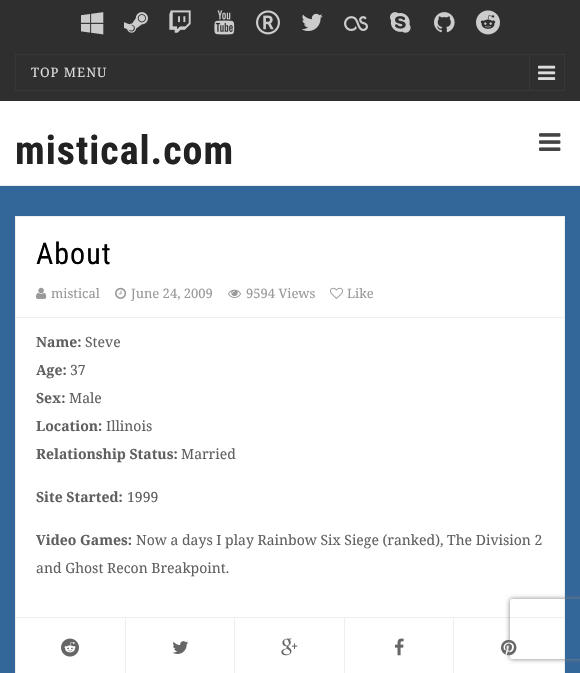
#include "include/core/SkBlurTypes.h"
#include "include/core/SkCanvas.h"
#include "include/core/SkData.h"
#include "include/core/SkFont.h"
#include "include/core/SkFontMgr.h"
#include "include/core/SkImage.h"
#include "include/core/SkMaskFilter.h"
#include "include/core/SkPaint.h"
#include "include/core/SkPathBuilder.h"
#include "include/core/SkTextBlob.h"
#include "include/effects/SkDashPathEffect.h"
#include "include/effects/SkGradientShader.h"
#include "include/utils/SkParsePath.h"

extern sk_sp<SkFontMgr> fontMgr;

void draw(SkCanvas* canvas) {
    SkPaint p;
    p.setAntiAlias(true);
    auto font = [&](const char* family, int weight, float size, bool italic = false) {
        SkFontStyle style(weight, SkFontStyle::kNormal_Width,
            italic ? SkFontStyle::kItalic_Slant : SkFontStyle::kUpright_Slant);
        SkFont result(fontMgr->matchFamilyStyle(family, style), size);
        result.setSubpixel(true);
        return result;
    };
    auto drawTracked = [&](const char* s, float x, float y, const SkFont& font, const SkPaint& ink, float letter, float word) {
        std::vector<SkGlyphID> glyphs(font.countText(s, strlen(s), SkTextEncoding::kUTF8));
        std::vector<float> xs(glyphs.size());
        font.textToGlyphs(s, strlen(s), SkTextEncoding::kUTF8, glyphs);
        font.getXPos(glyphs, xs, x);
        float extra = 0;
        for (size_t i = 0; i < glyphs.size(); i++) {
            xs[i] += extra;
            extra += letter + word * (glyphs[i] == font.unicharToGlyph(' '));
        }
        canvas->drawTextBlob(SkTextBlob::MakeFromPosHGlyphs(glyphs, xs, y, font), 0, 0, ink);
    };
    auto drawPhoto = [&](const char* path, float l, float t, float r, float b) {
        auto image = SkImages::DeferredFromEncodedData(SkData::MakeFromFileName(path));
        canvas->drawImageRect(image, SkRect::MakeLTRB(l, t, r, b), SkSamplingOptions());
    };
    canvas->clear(0xFF336699);
    p.setColor(0xFFEEEEEE);
    canvas->drawRect(SkRect::MakeLTRB(0, 185, 580, 186), p);
    p.setColor(0xFF2F2F2F);
    canvas->drawRect(SkRect::MakeLTRB(0, 0, 580, 101), p);
    drawPhoto("media/1.png", 81, 12, 104, 35);
    drawPhoto("media/2.png", 124, 12, 148, 33);
    drawPhoto("media/3.png", 169, 10, 191, 33);
    drawPhoto("media/4.png", 214, 10, 235, 35);
    drawPhoto("media/5.png", 256, 10, 280, 35);
    drawPhoto("media/6.png", 301, 13, 323, 31);
    drawPhoto("media/7.png", 344, 16, 368, 31);
    drawPhoto("media/8.png", 390, 12, 411, 33);
    drawPhoto("media/9.png", 434, 12, 455, 33);
    drawPhoto("media/10.png", 476, 10, 500, 35);
    p.setStyle(SkPaint::kStroke_Style);
    p.setStrokeWidth(1);
    p.setColor(0xFF383838);
    canvas->drawRect(SkRect::MakeLTRB(15.5f, 54.5f, 564.5f, 90.5f), p);
    auto font1 = font("Noto Serif", 400, 13);
    p.setStyle(SkPaint::kFill_Style);
    p.setColor(0xFFDDDDDD);
    drawTracked("TOP MENU", 31, 77, font1, p, 1, 0);
    p.setColor(0xFF383838);
    canvas->drawRect(SkRect::MakeLTRB(529, 55, 530, 90), p);
    drawPhoto("media/11.png", 538, 65, 556, 80);
    p.setColor(0xFFFFFFFF);
    canvas->drawRect(SkRect::MakeLTRB(0, 101, 580, 185), p);
    auto font2 = font("Roboto Condensed", 700, 40);
    p.setColor(0xFF222222);
    drawTracked("mistical.com", 15, 164, font2, p, 1, 0);
    drawPhoto("media/12.png", 539, 133, 561, 151);
    p.setColor(0xFFFFFFFF);
    canvas->drawRect(SkRect::MakeLTRB(15.5f, 216.5f, 564.5f, 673.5f), p);
    p.setStyle(SkPaint::kStroke_Style);
    p.setColor(0xFFEEEEEE);
    canvas->drawRect(SkRect::MakeLTRB(15.5f, 216.5f, 564.5f, 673.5f), p);
    p.setStyle(SkPaint::kFill_Style);
    canvas->drawRect(SkRect::MakeLTRB(16, 317, 564, 318), p);
    auto font3 = font("Roboto Condensed", 400, 30);
    p.setColor(0xFF000000);
    drawTracked("About", 36, 264, font3, p, 1, 0);
    drawPhoto("media/13.png", 36, 287, 47, 299);
    auto font4 = font("Droid Serif", 400, 13);
    p.setColor(0xFF999999);
    canvas->drawString("mistical", 51, 298, font4, p);
    drawPhoto("media/14.png", 115, 287, 127, 299);
    canvas->drawString("June 24, 2009", 131, 298, font1, p);
    drawPhoto("media/15.png", 228, 289, 241, 298);
    canvas->drawString("9594 Views", 246, 298, font1, p);
    drawPhoto("media/16.png", 330, 287, 343, 299);
    canvas->drawString("Like", 347, 298, font4, p);
    auto font5 = font("Noto Serif", 700, 14);
    p.setColor(0xFF606060);
    canvas->drawString("Name:", 36, 347, font5, p);
    auto font6 = font("Noto Serif", 400, 14);
    canvas->drawString("Steve", 85, 347, font6, p);
    canvas->drawString("Age:", 36, 375, font5, p);
    canvas->drawString("37", 70, 375, font6, p);
    canvas->drawString("Sex:", 36, 403, font5, p);
    canvas->drawString("Male", 69, 403, font6, p);
    canvas->drawString("Location:", 36, 431, font5, p);
    canvas->drawString("Illinois", 106, 431, font6, p);
    canvas->drawString("Relationship Status:", 36, 459, font5, p);
    canvas->drawString("Married", 181, 459, font6, p);
    canvas->drawString("Site Started:", 36, 502, font5, p);
    canvas->drawString("1999", 127, 502, font6, p);
    canvas->drawString("Video Games:", 36, 545, font5, p);
    canvas->drawString("Now a days I play Rainbow Six Siege (ranked), The Division 2", 136, 545, font6, p);
    canvas->drawString("and Ghost Recon Breakpoint.", 36, 573, font6, p);
    p.setColor(0xFFEEEEEE);
    canvas->drawRect(SkRect::MakeLTRB(16, 617, 564, 618), p);
    canvas->drawRect(SkRect::MakeLTRB(125, 618, 126, 673), p);
    drawPhoto("media/17.png", 61, 638, 79, 657);
    canvas->drawRect(SkRect::MakeLTRB(234, 618, 235, 673), p);
    drawPhoto("media/18.png", 172, 641, 189, 654);
    canvas->drawRect(SkRect::MakeLTRB(344, 618, 345, 673), p);
    drawPhoto("media/19.png", 281, 638, 298, 656);
    canvas->drawRect(SkRect::MakeLTRB(453, 618, 454, 673), p);
    drawPhoto("media/20.png", 394, 638, 404, 656);
    drawPhoto("media/21.png", 501, 639, 517, 656);
    canvas->save();
    canvas->clipPath(SkPathBuilder(SkPathFillType::kEvenOdd).moveTo(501, 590).lineTo(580, 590).lineTo(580, 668).lineTo(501, 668).close().moveTo(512, 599).lineTo(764, 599).cubicTo(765, 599, 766, 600, 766, 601).lineTo(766, 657).cubicTo(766, 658, 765, 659, 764, 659).lineTo(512, 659).cubicTo(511, 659, 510, 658, 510, 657).lineTo(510, 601).cubicTo(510, 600, 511, 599, 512, 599).close().detach(), true);
    p.setColor(0xFF808080);
    p.setMaskFilter(SkMaskFilter::MakeBlur(kNormal_SkBlurStyle, 2.5f));
    canvas->drawRoundRect(SkRect::MakeLTRB(510, 599, 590, 659), 2, 2, p);
    p.setMaskFilter(nullptr);
    canvas->restore();
}
